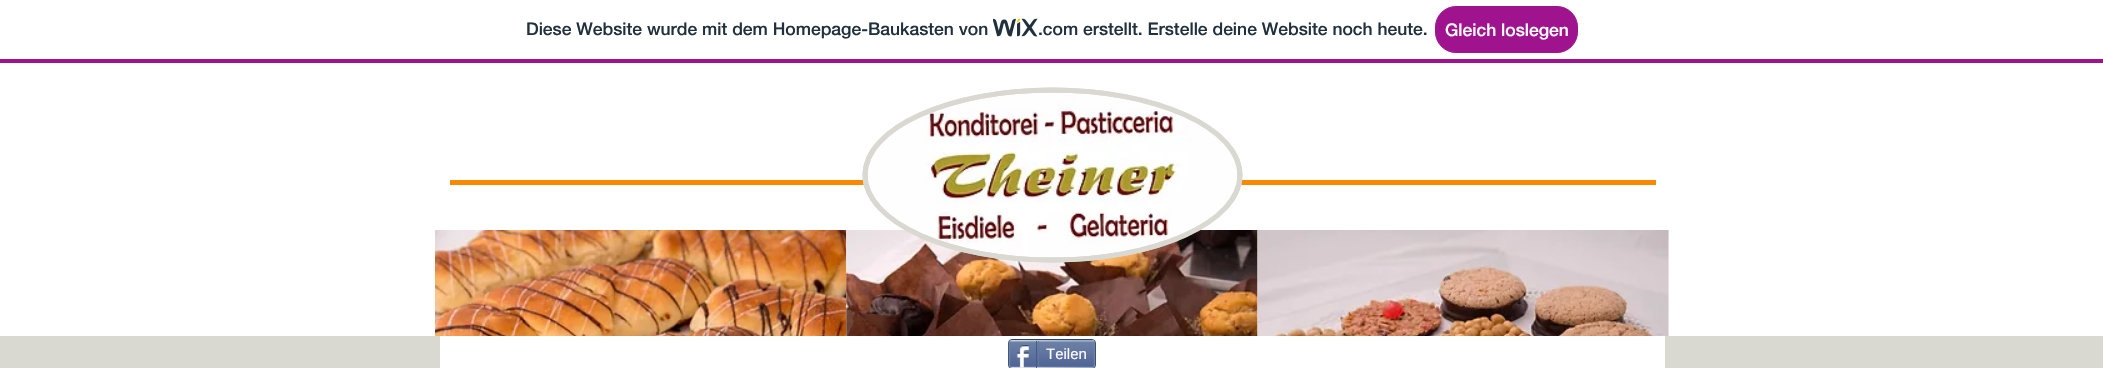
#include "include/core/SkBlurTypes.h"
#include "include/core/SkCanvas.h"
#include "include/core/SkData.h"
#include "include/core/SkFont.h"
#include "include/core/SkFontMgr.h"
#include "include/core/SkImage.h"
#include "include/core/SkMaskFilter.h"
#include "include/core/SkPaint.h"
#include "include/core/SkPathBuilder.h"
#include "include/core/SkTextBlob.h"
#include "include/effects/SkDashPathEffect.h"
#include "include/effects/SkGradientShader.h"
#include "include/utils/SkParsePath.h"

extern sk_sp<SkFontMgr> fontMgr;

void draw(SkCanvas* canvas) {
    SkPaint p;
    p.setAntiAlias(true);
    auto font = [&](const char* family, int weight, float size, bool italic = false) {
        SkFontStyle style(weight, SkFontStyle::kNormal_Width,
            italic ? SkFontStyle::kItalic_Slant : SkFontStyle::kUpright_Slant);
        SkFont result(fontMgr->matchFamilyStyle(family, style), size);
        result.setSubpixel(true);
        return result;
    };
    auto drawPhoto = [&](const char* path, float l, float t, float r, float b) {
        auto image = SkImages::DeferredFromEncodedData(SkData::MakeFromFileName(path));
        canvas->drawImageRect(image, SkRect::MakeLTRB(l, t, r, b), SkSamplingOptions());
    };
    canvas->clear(0xFFFFFFFF);
    p.setColor(0xFFA0138E);
    canvas->drawRect(SkRect::MakeLTRB(0, 59, 2103, 63), p);
    auto font1 = font("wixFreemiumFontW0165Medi", 500, 17.5f);
    p.setColor(0xFF20303C);
    canvas->drawString("Diese Website wurde mit dem Homepage-Baukasten von", 526, 35, font1, p);
    drawPhoto("media/1.png", 993, 18, 1038, 37);
    canvas->drawString(".com erstellt. Erstelle deine Website noch heute.", 1038, 35, font1, p);
    p.setColor(0xFFA0138E);
    canvas->drawRoundRect(SkRect::MakeLTRB(1435.5f, 6.5f, 1577.5f, 52.5f), 20.5f, 20.5f, p);
    p.setStyle(SkPaint::kStroke_Style);
    p.setStrokeWidth(1);
    canvas->drawRoundRect(SkRect::MakeLTRB(1435.5f, 6.5f, 1577.5f, 52.5f), 20.5f, 20.5f, p);
    p.setStyle(SkPaint::kFill_Style);
    p.setColor(0xFFFFFFFF);
    canvas->drawString("Gleich loslegen", 1445, 36, font1, p);
    p.setColor(0xFFF98900);
    canvas->drawRect(SkRect::MakeLTRB(450, 180, 1656, 185), p);
    drawPhoto("media/3.png", 435, 230, 847, 336);
    drawPhoto("media/4.png", 846, 230, 1258, 336);
    p.setColor(0xFFDAD9D1);
    canvas->drawOval(SkRect::MakeLTRB(862.5f, 87.5f, 1242.5f, 262.5f), p);
    p.setStyle(SkPaint::kStroke_Style);
    p.setStrokeWidth(5);
    canvas->drawPath(SkPathBuilder().moveTo(1052.5f, 90).cubicTo(1156, 90, 1240, 128, 1240, 175).cubicTo(1240, 222, 1156, 260, 1052.5f, 260).cubicTo(949, 260, 865, 222, 865, 175).cubicTo(865, 128, 949, 90, 1052.5f, 90).close().detach(), p);
    drawPhoto("media/2.png", 867, 92, 1238, 258);
    drawPhoto("media/5.png", 1257, 230, 1669, 336);
    p.setStyle(SkPaint::kFill_Style);
    canvas->drawRect(SkRect::MakeLTRB(0, 336, 2103, 368), p);
    p.setColor(0xFFFFFFFF);
    canvas->drawRect(SkRect::MakeLTRB(440, 336, 1665, 368), p);
    p.setStyle(SkPaint::kStroke_Style);
    p.setStrokeWidth(1);
    p.setColor(0xFF2D4565);
    canvas->drawRoundRect(SkRect::MakeLTRB(1008.5f, 339.5f, 1095.5f, 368.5f), 3.5f, 3.5f, p);
    drawPhoto("media/6.png", 1008, 341, 1096, 368);
    p.setStrokeWidth(1.2f);
    p.setColor(0xFF9AABC6);
    canvas->drawPath(SkPathBuilder().moveTo(1010, 341).lineTo(1079, 340.5f).lineTo(1092.5f, 340.5f).lineTo(1094, 341).detach(), p);
    p.setColor(0xFF6F83AD);
    canvas->drawPath(SkPathBuilder().moveTo(1094, 341).lineTo(1094.5f, 342.5f).lineTo(1094.5f, 365).lineTo(1094, 366.5f).detach(), p);
    p.setColor(0xFF6176A3);
    canvas->drawPath(SkPathBuilder().moveTo(1094, 366.5f).lineTo(1092.5f, 367).lineTo(1010, 366.5f).detach(), p);
    p.setColor(0xFF6F83AD);
    canvas->drawPath(SkPathBuilder().moveTo(1010, 366.5f).lineTo(1009.5f, 365).lineTo(1009.5f, 342.5f).lineTo(1010, 341).detach(), p);
    drawPhoto("media/7.png", 1016, 345, 1029, 368);
    p.setStyle(SkPaint::kFill_Style);
    p.setColor(0xFF425E85);
    canvas->drawRect(SkRect::MakeLTRB(1036, 341, 1037, 368), p);
    auto font2 = font("Liberation Sans", 400, 15);
    p.setColor(0xFFFFFFFF);
    canvas->drawString("Teilen", 1046, 359, font2, p);
    p.setColor(0xFF6176A3);
    canvas->drawRect(SkRect::MakeLTRB(1038, 341, 1039, 366), p);
}
